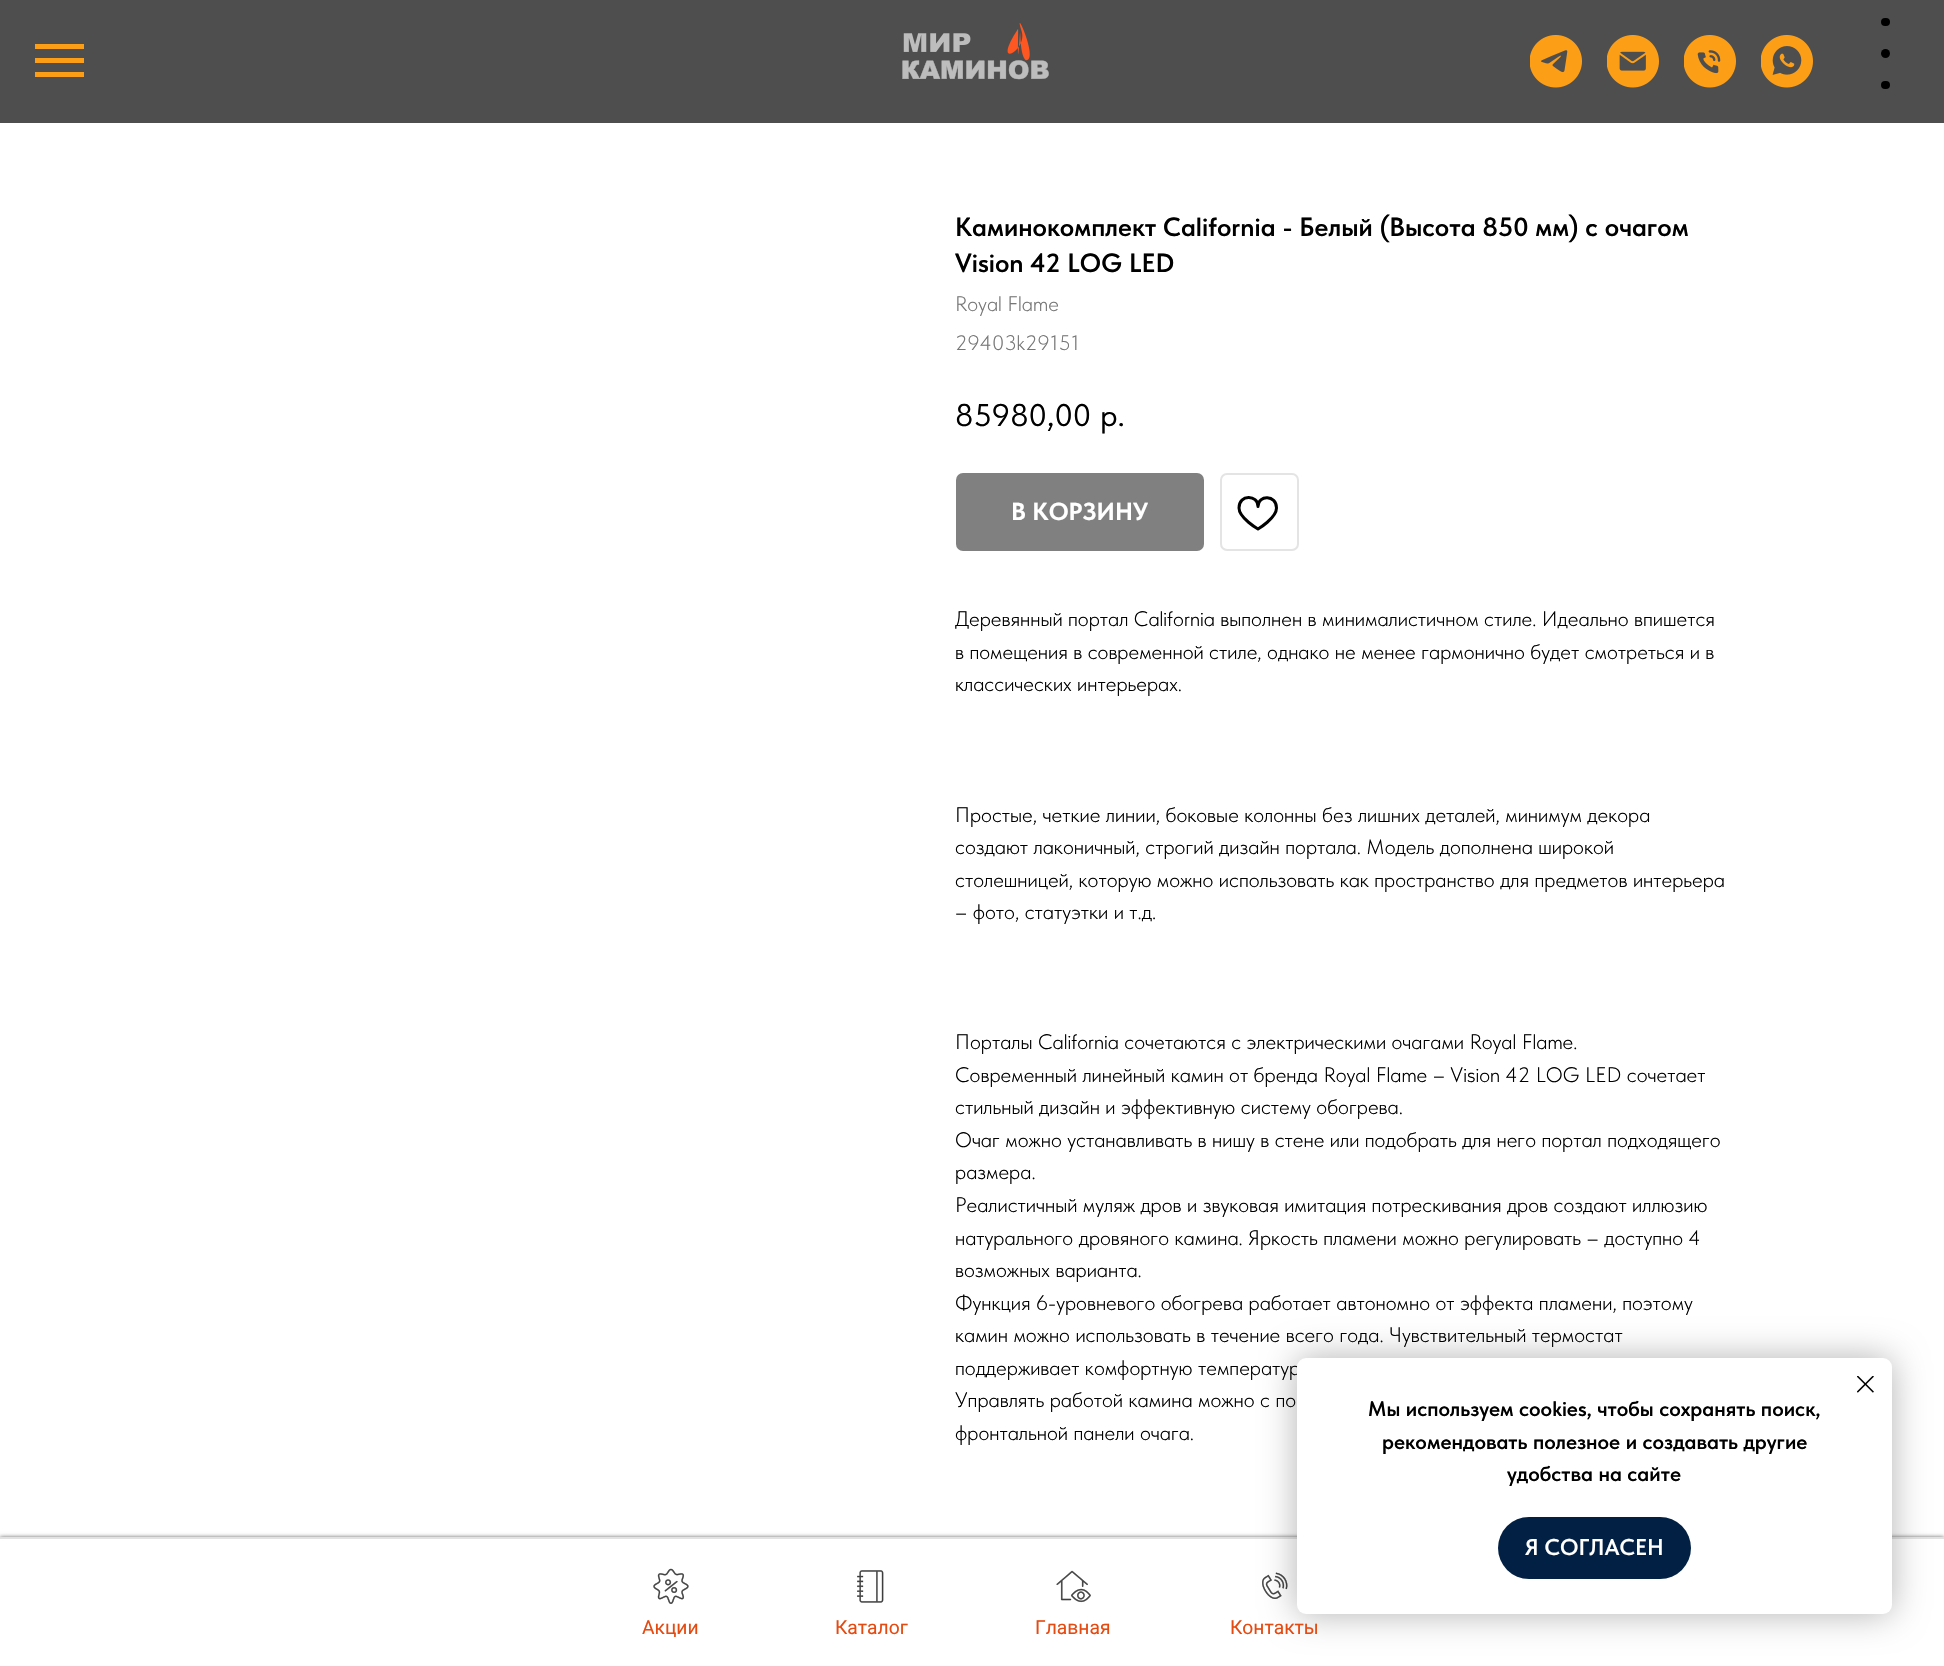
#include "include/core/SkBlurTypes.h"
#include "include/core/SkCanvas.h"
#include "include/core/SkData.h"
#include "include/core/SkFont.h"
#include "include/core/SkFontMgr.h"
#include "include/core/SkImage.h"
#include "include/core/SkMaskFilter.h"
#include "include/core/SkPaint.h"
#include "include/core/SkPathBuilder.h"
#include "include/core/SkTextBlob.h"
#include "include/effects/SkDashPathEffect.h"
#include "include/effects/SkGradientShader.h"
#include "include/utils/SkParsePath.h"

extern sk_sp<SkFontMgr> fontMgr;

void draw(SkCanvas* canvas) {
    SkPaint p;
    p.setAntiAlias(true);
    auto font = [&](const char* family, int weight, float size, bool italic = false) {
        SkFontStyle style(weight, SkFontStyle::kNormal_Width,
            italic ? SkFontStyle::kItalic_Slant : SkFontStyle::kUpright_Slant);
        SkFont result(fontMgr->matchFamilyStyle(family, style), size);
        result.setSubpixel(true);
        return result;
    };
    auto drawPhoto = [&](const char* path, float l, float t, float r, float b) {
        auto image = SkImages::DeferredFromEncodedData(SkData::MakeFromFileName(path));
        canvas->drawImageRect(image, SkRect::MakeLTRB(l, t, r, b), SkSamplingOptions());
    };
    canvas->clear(0xFFFFFFFF);
    {
        const struct { float l, t, r, b; SkColor color; } items[] = {
            {0, 0, 1944, 123, 0xFF4E4E4E},
            {35, 44, 84, 49, 0xFFFC9F17},
            {35, 58, 84, 63, 0xFFFC9F17},
            {35, 72, 84, 77, 0xFFFC9F17},
        };
        for (auto [l, t, r, b, color] : items) {
            p.setColor(color);
            canvas->drawRect(SkRect::MakeLTRB(l, t, r, b), p);
        }
    }
    drawPhoto("media/1.png", 902, 23, 1049, 80);
    drawPhoto("media/2.png", 1530, 35, 1582, 88);
    drawPhoto("media/3.png", 1607, 35, 1659, 88);
    drawPhoto("media/4.png", 1684, 35, 1736, 88);
    drawPhoto("media/5.png", 1761, 35, 1813, 88);
    p.setColor(0xFF000000);
    canvas->drawRoundRect(SkRect::MakeLTRB(1881, 18, 1890, 26), 4, 4, p);
    canvas->drawCircle(1885.5f, 53.5f, 4.5f, p);
    canvas->drawRoundRect(SkRect::MakeLTRB(1881, 81, 1890, 89), 4, 4, p);
    auto font1 = font("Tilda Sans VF", 600, 26.25f);
    canvas->drawString("Каминокомплект California - Белый (Высота 850 мм) с очагом", 955, 236, font1, p);
    canvas->drawString("Vision 42 LOG LED", 955, 272, font1, p);
    auto font2 = font("Tilda Sans VF", 300, 21);
    p.setColor(0xFF777777);
    canvas->drawString("Royal Flame", 955, 311, font2, p);
    canvas->drawString("29403k29151", 955, 350, font2, p);
    auto font3 = font("Tilda Sans VF", 400, 31.5f);
    p.setColor(0xFF000000);
    canvas->drawString("85980,00", 955, 426, font3, p);
    canvas->drawString("р.", 1100, 426, font3, p);
    p.setColor(0xFF808080);
    canvas->drawRoundRect(SkRect::MakeLTRB(956, 473, 1204, 551), 7, 7, p);
    auto font4 = font("Tilda Sans VF", 700, 24.5f);
    p.setColor(0xFFFFFFFF);
    canvas->drawString("В КОРЗИНУ", 1011, 520, font4, p);
    p.setStyle(SkPaint::kStroke_Style);
    p.setStrokeWidth(2);
    p.setColor(0xFFE4E4E4);
    canvas->drawRoundRect(SkRect::MakeLTRB(1221, 474, 1298, 550), 6, 6, p);
    p.setStrokeWidth(3);
    p.setStrokeJoin(SkPaint::kRound_Join);
    p.setColor(0xFF000000);
    canvas->drawPath(SkPathBuilder().moveTo(1276.5f, 508).cubicTo(1276.5f, 518, 1258, 529, 1258, 529).cubicTo(1258, 529, 1239, 518, 1239, 508).cubicTo(1239, 494, 1258, 494.5f, 1258, 506.5f).cubicTo(1258, 494.5f, 1276.5f, 494.5f, 1276.5f, 508).close().detach(), p);
    p.setStyle(SkPaint::kFill_Style);
    {
        const struct { const char* s; float x, y; } items[] = {
            {"Деревянный портал California выполнен в минималистичном стиле. Идеально впишется", 955, 626},
            {"в помещения в современной стиле, однако не менее гармонично будет смотреться и в", 955, 659},
            {"классических интерьерах.", 955, 691},
            {"Простые, четкие линии, боковые колонны без лишних деталей, минимум декора", 955, 822},
            {"создают лаконичный, строгий дизайн портала. Модель дополнена широкой", 955, 854},
            {"столешницей, которую можно использовать как пространство для предметов интерьера", 955, 887},
            {"– фото, статуэтки и т.д.", 955, 919},
            {"Порталы California сочетаются с электрическими очагами Royal Flame.", 955, 1049},
            {"Современный линейный камин от бренда Royal Flame – Vision 42 LOG LED сочетает", 955, 1082},
            {"стильный дизайн и эффективную систему обогрева.", 955, 1114},
            {"Очаг можно устанавливать в нишу в стене или подобрать для него портал подходящего", 955, 1147},
            {"размера.", 955, 1179},
            {"Реалистичный муляж дров и звуковая имитация потрескивания дров создают иллюзию", 955, 1212},
            {"натурального дровяного камина. Яркость пламени можно регулировать – доступно 4", 955, 1245},
            {"возможных варианта.", 955, 1277},
            {"Функция 6-уровневого обогрева работает автономно от эффекта пламени, поэтому", 955, 1310},
            {"камин можно использовать в течение всего года. Чувствительный термостат", 955, 1342},
            {"поддерживает комфортную температур", 955, 1375},
            {"Управлять работой камина можно с по", 955, 1407},
            {"фронтальной панели очага.", 955, 1440},
        };
        for (auto [s, x, y] : items) {
            canvas->drawString(s, x, y, font2, p);
        }
    }
    p.setColor(0x99000000);
    p.setMaskFilter(SkMaskFilter::MakeBlur(kNormal_SkBlurStyle, 2));
    canvas->drawRect(SkRect::MakeLTRB(0, 1537, 1944, 1666), p);
    p.setMaskFilter(nullptr);
    p.setColor(0xFFFFFFFF);
    canvas->drawRect(SkRect::MakeLTRB(0, 1539, 1944, 1666), p);
    p.setColor(0xFFE2E2E2);
    canvas->drawRect(SkRect::MakeLTRB(0, 1537, 1944, 1539), p);
    drawPhoto("media/10.png", 1262, 1572, 1288, 1599);
    p.setColor(0x4D000000);
    p.setMaskFilter(SkMaskFilter::MakeBlur(kNormal_SkBlurStyle, 17.5f));
    canvas->drawRoundRect(SkRect::MakeLTRB(1297, 1358, 1892, 1614), 9, 9, p);
    p.setMaskFilter(nullptr);
    p.setColor(0xFFFFFFFF);
    canvas->drawRoundRect(SkRect::MakeLTRB(1297, 1358, 1892, 1614), 9, 9, p);
    drawPhoto("media/6.png", 1857, 1376, 1874, 1393);
    auto font5 = font("Tilda Sans VF", 600, 21);
    p.setColor(0xFF000000);
    {
        const struct { const char* s; float x, y; } items[] = {
            {"Мы используем cookies, чтобы сохранять поиск,", 1368, 1416},
            {"рекомендовать полезное и создавать другие", 1382, 1449},
            {"удобства на сайте", 1507, 1481},
        };
        for (auto [s, x, y] : items) {
            canvas->drawString(s, x, y, font5, p);
        }
    }
    p.setColor(0xFF012043);
    canvas->drawRoundRect(SkRect::MakeLTRB(1498, 1517, 1691, 1579), 31, 31, p);
    auto font6 = font("Tilda Sans VF", 600, 22.75f);
    p.setColor(0xFFFFFFFF);
    canvas->drawString("Я СОГЛАСЕН", 1525, 1555, font6, p);
    drawPhoto("media/7.png", 653, 1568, 689, 1604);
    auto font7 = font("Roboto", 400, 19.25f);
    p.setColor(0xFFE54A11);
    canvas->drawString("Акции", 642, 1634, font7, p);
    drawPhoto("media/8.png", 857, 1570, 884, 1603);
    canvas->drawString("Каталог", 835, 1634, font7, p);
    drawPhoto("media/9.png", 1056, 1570, 1091, 1603);
    canvas->drawString("Главная", 1035, 1634, font7, p);
    canvas->drawString("Контакты", 1230, 1634, font7, p);
}
